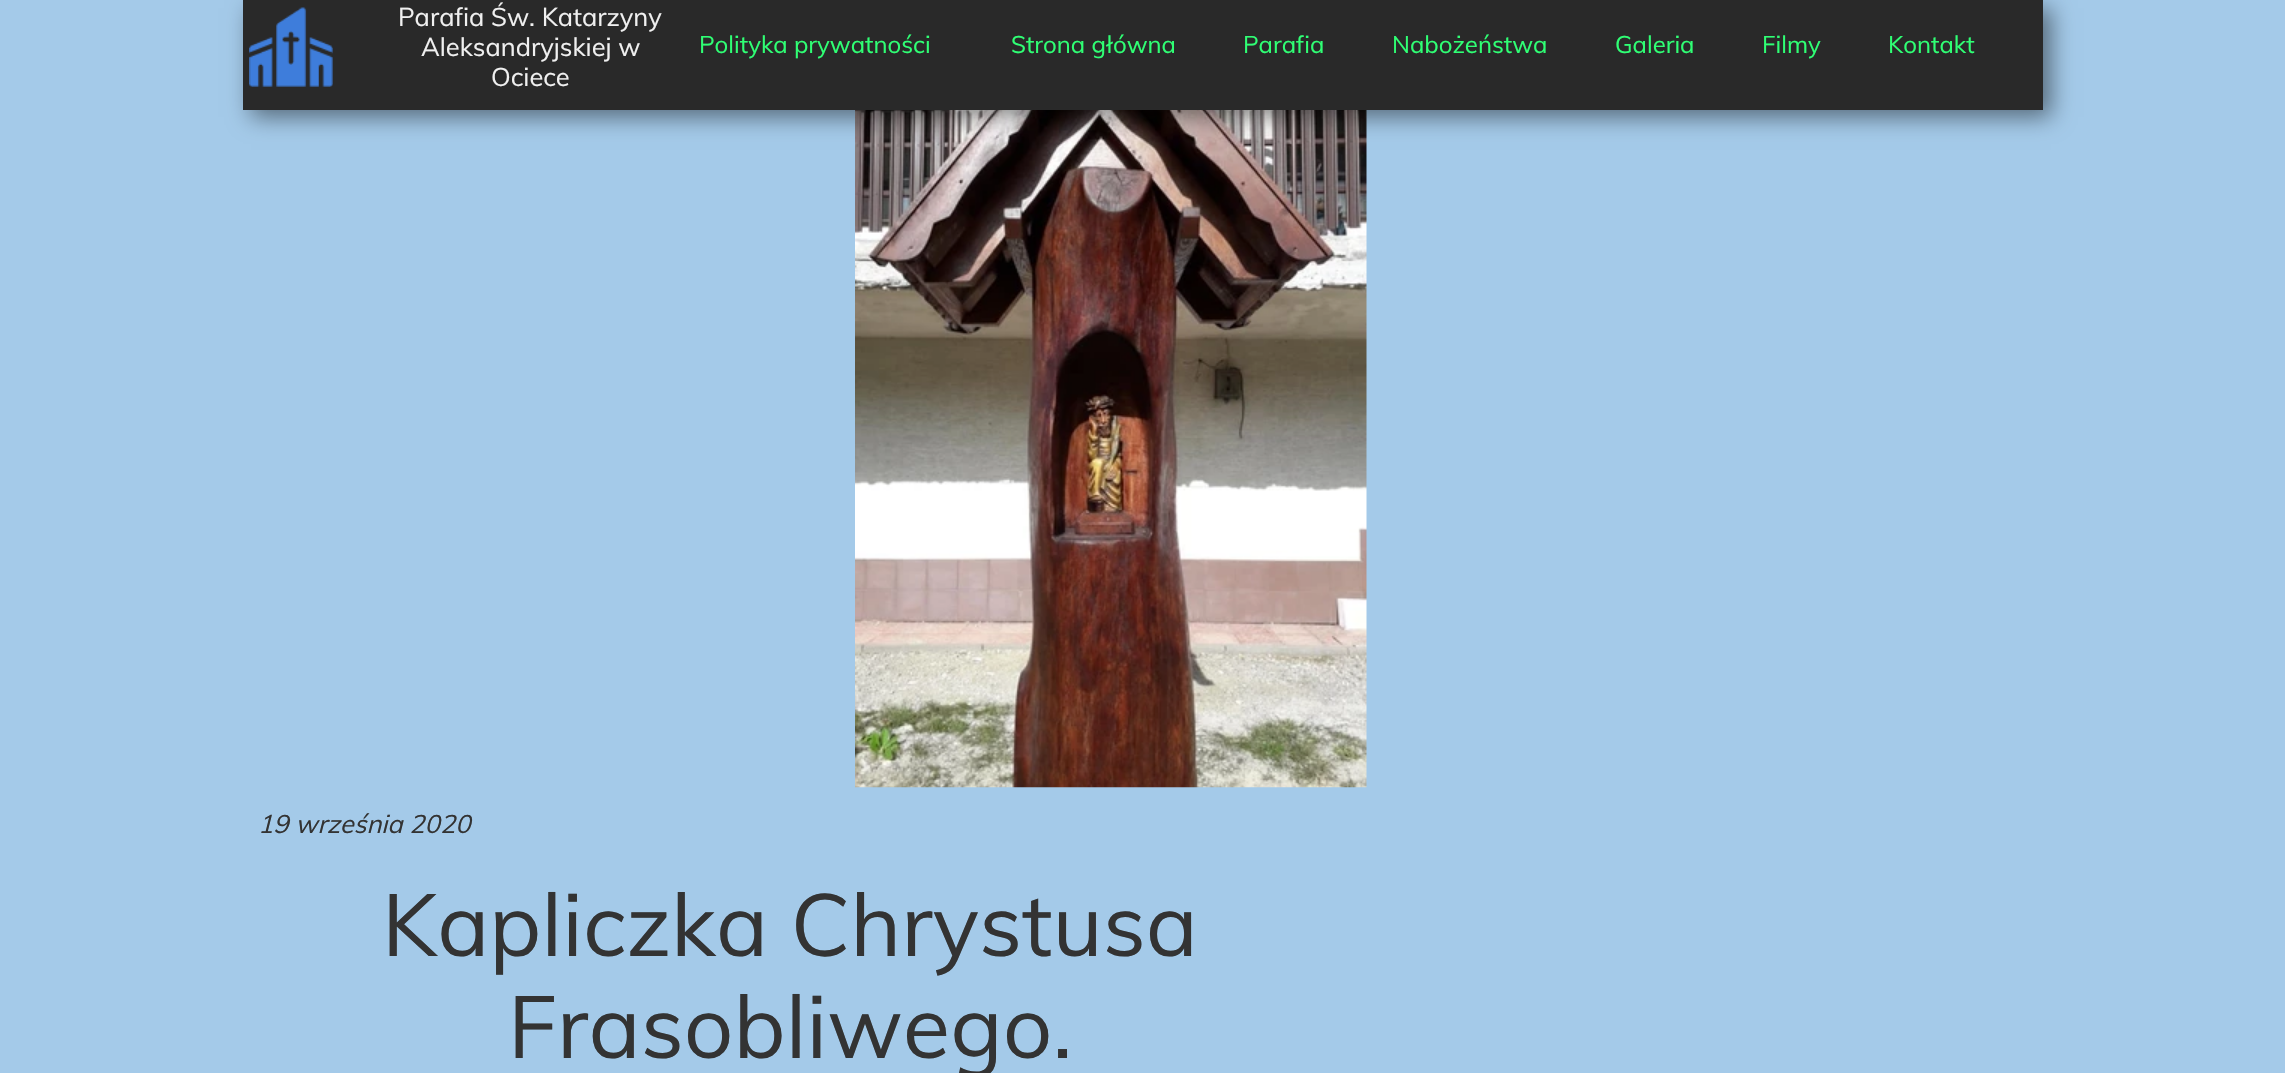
#include "include/core/SkBlurTypes.h"
#include "include/core/SkCanvas.h"
#include "include/core/SkData.h"
#include "include/core/SkFont.h"
#include "include/core/SkFontMgr.h"
#include "include/core/SkImage.h"
#include "include/core/SkMaskFilter.h"
#include "include/core/SkPaint.h"
#include "include/core/SkPathBuilder.h"
#include "include/core/SkTextBlob.h"
#include "include/effects/SkDashPathEffect.h"
#include "include/effects/SkGradientShader.h"
#include "include/utils/SkParsePath.h"

extern sk_sp<SkFontMgr> fontMgr;

void draw(SkCanvas* canvas) {
    SkPaint p;
    p.setAntiAlias(true);
    auto font = [&](const char* family, int weight, float size, bool italic = false) {
        SkFontStyle style(weight, SkFontStyle::kNormal_Width,
            italic ? SkFontStyle::kItalic_Slant : SkFontStyle::kUpright_Slant);
        SkFont result(fontMgr->matchFamilyStyle(family, style), size);
        result.setSubpixel(true);
        return result;
    };
    auto drawPhoto = [&](const char* path, float l, float t, float r, float b) {
        auto image = SkImages::DeferredFromEncodedData(SkData::MakeFromFileName(path));
        canvas->drawImageRect(image, SkRect::MakeLTRB(l, t, r, b), SkSamplingOptions());
    };
    canvas->clear(0xFFA4CAE9);
    drawPhoto("media/2.png", 855, 110, 1367, 788);
    p.setColor(0x7A000000);
    p.setMaskFilter(SkMaskFilter::MakeBlur(kNormal_SkBlurStyle, 11));
    canvas->drawRect(SkRect::MakeLTRB(251, 8, 2051, 117), p);
    p.setMaskFilter(nullptr);
    p.setColor(0xFF292929);
    canvas->drawRect(SkRect::MakeLTRB(243, 0, 2043, 110), p);
    drawPhoto("media/1.png", 249, 7, 333, 87);
    auto font1 = font("Muli", 400, 25.5f);
    p.setColor(0xFFF0F0F0);
    {
        const struct { const char* s; float x, y; } items[] = {
            {"Parafia Św. Katarzyny", 398, 26},
            {"Aleksandryjskiej w", 421, 56},
            {"Ociece", 491, 86},
        };
        for (auto [s, x, y] : items) {
            canvas->drawString(s, x, y, font1, p);
        }
    }
    auto font2 = font("Muli", 400, 24);
    p.setColor(0xFF2FFF74);
    {
        const struct { const char* s; float x, y; } items[] = {
            {"Polityka prywatności", 699, 53},
            {"Strona główna", 1011, 53},
            {"Parafia", 1243, 53},
            {"Nabożeństwa", 1392, 53},
            {"Galeria", 1615, 53},
            {"Filmy", 1762, 53},
            {"Kontakt", 1888, 53},
        };
        for (auto [s, x, y] : items) {
            canvas->drawString(s, x, y, font2, p);
        }
    }
    auto font3 = font("Muli", 400, 25.5f, true);
    p.setColor(0xFF333333);
    canvas->drawString("19 września 2020", 258, 833, font3, p);
    auto font4 = font("Muli", 400, 87);
    canvas->drawString("Kapliczka Chrystusa", 382, 956, font4, p);
    canvas->drawString("Frasobliwego.", 508, 1058, font4, p);
}
